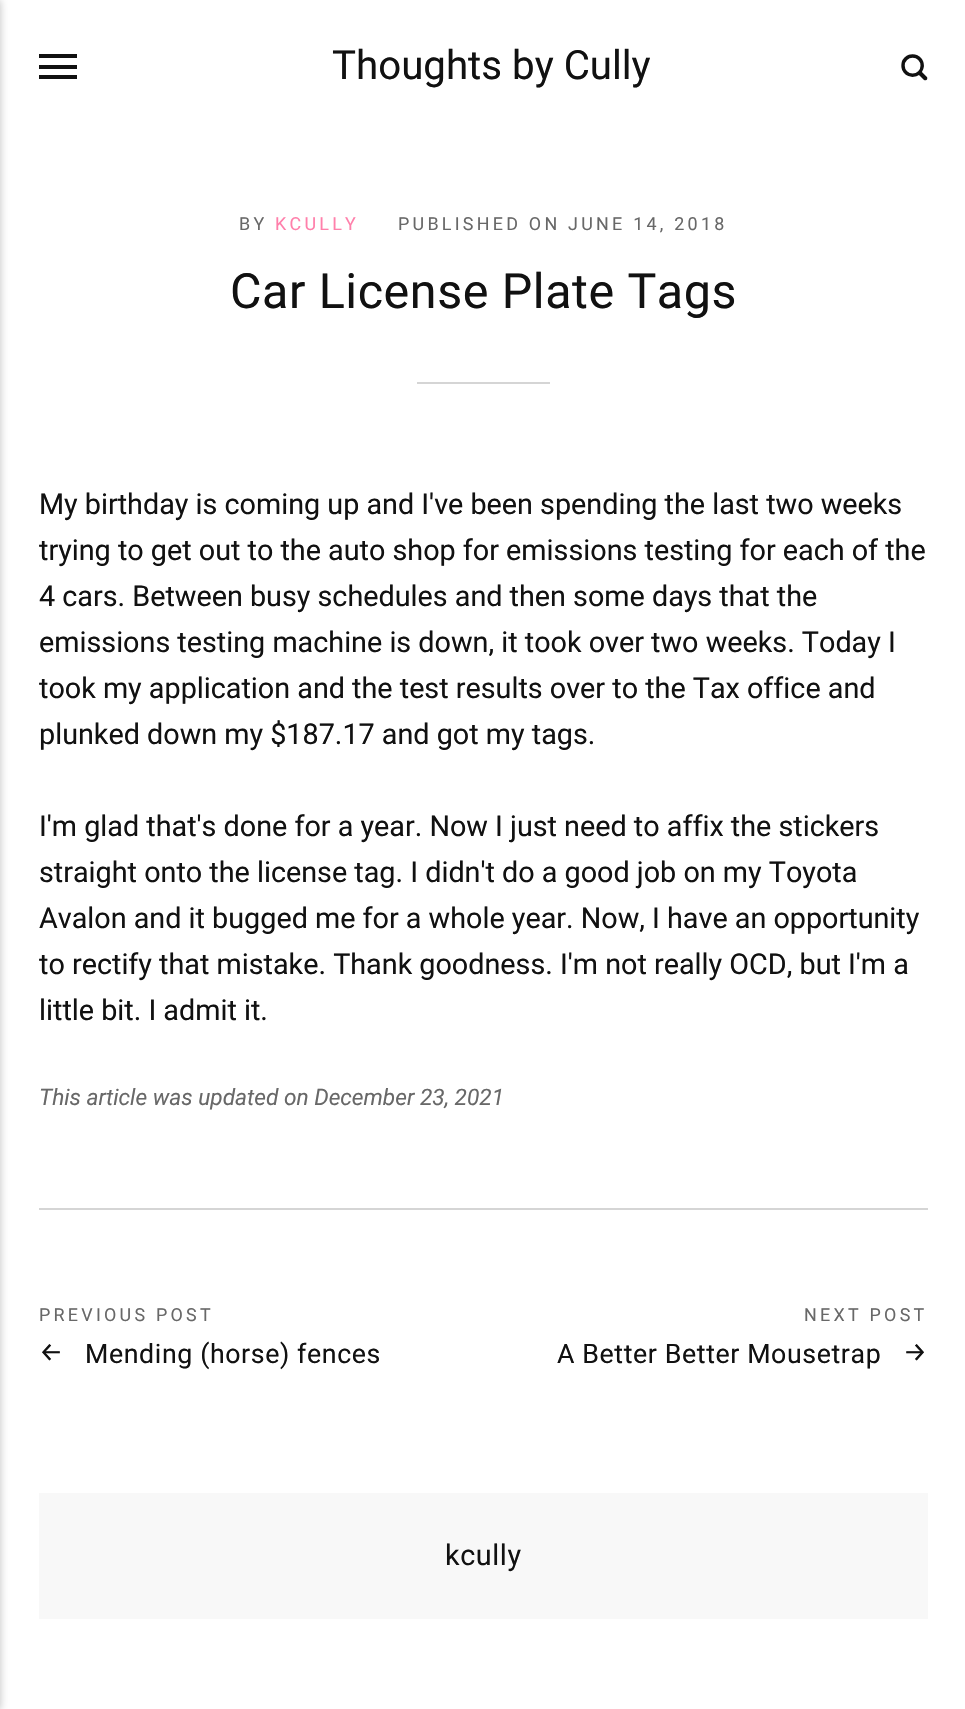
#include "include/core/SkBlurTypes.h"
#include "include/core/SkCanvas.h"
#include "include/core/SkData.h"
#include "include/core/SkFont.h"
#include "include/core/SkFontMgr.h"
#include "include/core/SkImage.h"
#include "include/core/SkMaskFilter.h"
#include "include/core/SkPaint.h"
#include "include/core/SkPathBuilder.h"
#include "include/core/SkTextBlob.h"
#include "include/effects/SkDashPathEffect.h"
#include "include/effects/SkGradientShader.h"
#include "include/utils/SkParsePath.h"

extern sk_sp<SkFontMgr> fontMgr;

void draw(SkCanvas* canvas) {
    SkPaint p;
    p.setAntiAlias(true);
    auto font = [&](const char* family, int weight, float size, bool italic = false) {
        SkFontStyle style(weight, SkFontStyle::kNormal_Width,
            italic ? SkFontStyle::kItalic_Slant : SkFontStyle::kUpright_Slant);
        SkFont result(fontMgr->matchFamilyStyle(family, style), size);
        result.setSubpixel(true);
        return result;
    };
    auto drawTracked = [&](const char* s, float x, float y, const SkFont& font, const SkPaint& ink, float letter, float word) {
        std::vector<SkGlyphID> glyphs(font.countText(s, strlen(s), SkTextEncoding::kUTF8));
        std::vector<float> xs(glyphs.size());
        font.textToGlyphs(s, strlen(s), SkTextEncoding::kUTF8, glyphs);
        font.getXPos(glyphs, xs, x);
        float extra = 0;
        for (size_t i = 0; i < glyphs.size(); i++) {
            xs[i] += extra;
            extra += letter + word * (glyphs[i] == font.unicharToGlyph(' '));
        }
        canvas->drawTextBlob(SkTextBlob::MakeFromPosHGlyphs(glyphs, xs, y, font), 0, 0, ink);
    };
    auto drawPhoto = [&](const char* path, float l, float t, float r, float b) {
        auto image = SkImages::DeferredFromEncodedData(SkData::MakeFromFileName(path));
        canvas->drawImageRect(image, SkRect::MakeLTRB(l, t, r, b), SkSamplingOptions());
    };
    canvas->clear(0xFFFFFFFF);
    p.setColor(0x40000000);
    p.setMaskFilter(SkMaskFilter::MakeBlur(kNormal_SkBlurStyle, 4.5f));
    canvas->drawRect(SkRect::MakeLTRB(-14, 0, 0, 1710), p);
    p.setMaskFilter(nullptr);
    {
        const struct { float l, t, r, b; SkColor color; } items[] = {
            {39, 65, 77, 69, 0xFF111111},
            {39, 54, 77, 58, 0xFF111111},
            {39, 75, 77, 79, 0xFF111111},
        };
        for (auto [l, t, r, b, color] : items) {
            p.setColor(color);
            canvas->drawRect(SkRect::MakeLTRB(l, t, r, b), p);
        }
    }
    auto font1 = font("Roboto", 400, 40.25f);
    canvas->drawString("Thoughts by Cully", 332, 79, font1, p);
    drawPhoto("media/1.png", 901, 54, 928, 81);
    auto font2 = font("Roboto", 400, 17.9f);
    p.setColor(0xFF686868);
    drawTracked("BY", 239, 230, font2, p, 3.25f, 0);
    p.setColor(0xFFFF80AB);
    drawTracked("KCULLY", 275, 230, font2, p, 3.25f, 0);
    p.setColor(0xFF686868);
    drawTracked("PUBLISHED ON JUNE 14, 2018", 398, 230, font2, p, 3.25f, 0);
    auto font3 = font("Roboto", 400, 48.4f);
    p.setColor(0xFF111111);
    drawTracked("Car License Plate Tags", 230, 308, font3, p, 0.6f, 0);
    p.setColor(0xFFD5D5D5);
    canvas->drawRect(SkRect::MakeLTRB(417, 382, 550, 384), p);
    auto font4 = font("Roboto", 400, 28.75f);
    p.setColor(0xFF111111);
    {
        const struct { const char* s; float x, y; } items[] = {
            {"My birthday is coming up and I've been spending the last two weeks", 39, 514},
            {"trying to get out to the auto shop for emissions testing for each of the", 39, 560},
            {"4 cars. Between busy schedules and then some days that the", 39, 606},
            {"emissions testing machine is down, it took over two weeks. Today I", 39, 652},
            {"took my application and the test results over to the Tax office and", 39, 698},
            {"plunked down my $187.17 and got my tags.", 39, 744},
            {"I'm glad that's done for a year. Now I just need to affix the stickers", 39, 836},
            {"straight onto the license tag. I didn't do a good job on my Toyota", 39, 882},
            {"Avalon and it bugged me for a whole year. Now, I have an opportunity", 39, 928},
            {"to rectify that mistake. Thank goodness. I'm not really OCD, but I'm a", 39, 974},
            {"little bit. I admit it.", 39, 1020},
        };
        for (auto [s, x, y] : items) {
            canvas->drawString(s, x, y, font4, p);
        }
    }
    auto font5 = font("Roboto", 400, 22.7f, true);
    p.setColor(0xFF686868);
    canvas->drawString("This article was updated on December 23, 2021", 39, 1105, font5, p);
    p.setColor(0xFFD5D5D5);
    canvas->drawRect(SkRect::MakeLTRB(39, 1208, 928, 1210), p);
    p.setColor(0xFF686868);
    drawTracked("PREVIOUS POST", 39, 1321, font2, p, 3.25f, 0);
    auto font6 = font("Fira Sans", 400, 26.75f);
    p.setColor(0xFF111111);
    drawTracked("←", 39, 1361, font6, p, 0.6f, 0);
    auto font7 = font("Roboto", 400, 26.75f);
    drawTracked("Mending (horse) fences", 85, 1363, font7, p, 0.6f, 0);
    p.setColor(0xFF686868);
    drawTracked("NEXT POST", 804, 1321, font2, p, 3.25f, 0);
    p.setColor(0xFF111111);
    drawTracked("A Better Better Mousetrap", 557, 1363, font7, p, 0.6f, 0);
    drawTracked("→", 903, 1361, font6, p, 0.6f, 0);
    p.setColor(0xFFF8F8F8);
    canvas->drawRect(SkRect::MakeLTRB(39, 1493, 928, 1619), p);
    p.setColor(0xFF111111);
    drawTracked("kcully", 445, 1565, font4, p, 0.6f, 0);
}
